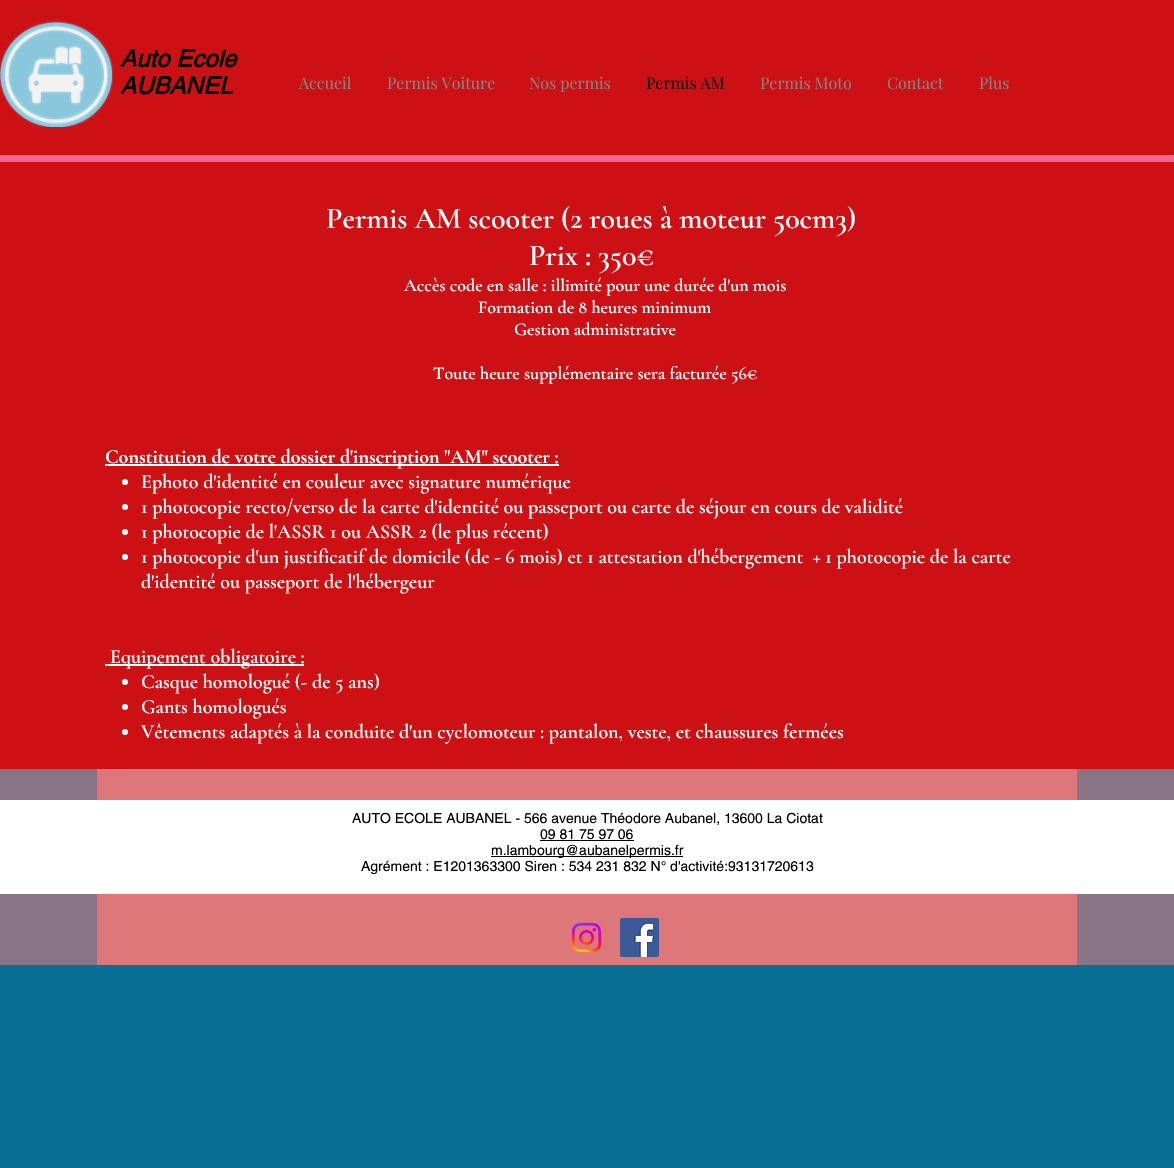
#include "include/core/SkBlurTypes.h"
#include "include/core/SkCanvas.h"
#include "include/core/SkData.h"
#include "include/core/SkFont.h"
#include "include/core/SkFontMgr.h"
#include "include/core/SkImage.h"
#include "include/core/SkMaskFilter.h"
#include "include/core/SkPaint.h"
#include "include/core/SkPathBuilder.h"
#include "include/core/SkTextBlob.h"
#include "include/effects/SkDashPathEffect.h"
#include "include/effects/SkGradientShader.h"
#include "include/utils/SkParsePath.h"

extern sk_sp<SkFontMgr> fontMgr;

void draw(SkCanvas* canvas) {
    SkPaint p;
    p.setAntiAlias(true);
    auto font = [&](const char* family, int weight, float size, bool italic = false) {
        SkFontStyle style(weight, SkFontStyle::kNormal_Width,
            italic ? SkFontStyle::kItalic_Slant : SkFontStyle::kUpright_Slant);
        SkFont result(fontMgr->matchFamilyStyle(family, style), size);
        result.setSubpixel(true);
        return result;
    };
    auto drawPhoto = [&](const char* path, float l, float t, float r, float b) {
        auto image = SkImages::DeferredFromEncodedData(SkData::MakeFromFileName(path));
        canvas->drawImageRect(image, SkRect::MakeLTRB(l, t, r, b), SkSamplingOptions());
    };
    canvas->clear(0xFF087095);
    p.setColor(0xFFCC1013);
    canvas->drawRect(SkRect::MakeLTRB(0, 0, 1174, 155), p);
    p.setColor(0xFFF2668F);
    canvas->drawRect(SkRect::MakeLTRB(0, 155, 1174, 162), p);
    drawPhoto("media/1.png", 0, 20, 113, 127);
    auto font1 = font("helvetica", 700, 24, true);
    p.setColor(0xFF000000);
    canvas->drawString("Auto Ecole", 120, 67, font1, p);
    canvas->drawString("AUBANEL", 120, 94, font1, p);
    auto font2 = font("Playfair Display", 400, 16);
    p.setColor(0xFF858585);
    {
        const struct { const char* s; float x, y; } items[] = {
            {"Accueil", 299, 89},
            {"Permis Voiture", 387, 89},
            {"Nos permis", 529, 89},
        };
        for (auto [s, x, y] : items) {
            canvas->drawString(s, x, y, font2, p);
        }
    }
    p.setColor(0xFF000000);
    canvas->drawString("Permis AM", 646, 89, font2, p);
    p.setColor(0xFF858585);
    {
        const struct { const char* s; float x, y; } items[] = {
            {"Permis Moto", 760, 89},
            {"Contact", 887, 89},
            {"Plus", 979, 89},
        };
        for (auto [s, x, y] : items) {
            canvas->drawString(s, x, y, font2, p);
        }
    }
    p.setColor(0xFFCC1013);
    canvas->drawRect(SkRect::MakeLTRB(0, 162, 1174, 769), p);
    auto font3 = font("Cormorant Garamond", 600, 30);
    p.setColor(0xFFFFFFFF);
    canvas->drawString("Permis AM scooter (2 roues à moteur 50cm3)", 326, 228, font3, p);
    canvas->drawString("Prix : 350€", 529, 265, font3, p);
    auto font4 = font("Cormorant Garamond", 600, 18);
    {
        const struct { const char* s; float x, y; } items[] = {
            {"Accès code en salle : illimité pour une durée d'un mois", 404, 291},
            {"Formation de 8 heures minimum", 478, 313},
            {"Gestion administrative", 514, 335},
            {"Toute heure supplémentaire sera facturée 56€", 433, 379},
        };
        for (auto [s, x, y] : items) {
            canvas->drawString(s, x, y, font4, p);
        }
    }
    canvas->drawRect(SkRect::MakeLTRB(105, 464, 559, 466), p);
    auto font5 = font("Cormorant Garamond", 700, 20);
    canvas->drawString("Constitution de votre dossier d'inscription \"AM\" scooter :", 105, 463, font5, p);
    canvas->drawCircle(125, 482, 3, p);
    auto font6 = font("Cormorant Garamond", 600, 20);
    canvas->drawString("Ephoto d'identité en couleur avec signature numérique", 141, 488, font6, p);
    canvas->drawCircle(125, 507, 3, p);
    canvas->drawString("1 photocopie recto/verso de la carte d'identité ou passeport ou carte de séjour en cours de validité", 141, 513, font6, p);
    canvas->drawCircle(125, 532, 3, p);
    canvas->drawString("1 photocopie de l'ASSR 1 ou ASSR 2 (le plus récent)", 141, 538, font6, p);
    canvas->drawCircle(125, 557, 3, p);
    canvas->drawString("1 photocopie d'un justificatif de domicile (de - 6 mois) et 1 attestation d'hébergement  + 1 photocopie de la carte", 141, 563, font6, p);
    canvas->drawString("d'identité ou passeport de l'hébergeur", 141, 588, font6, p);
    canvas->drawRect(SkRect::MakeLTRB(105, 664, 304, 666), p);
    canvas->drawString("Equipement obligatoire :", 110, 663, font6, p);
    canvas->drawCircle(125, 682, 3, p);
    canvas->drawString("Casque homologué (- de 5 ans)", 141, 688, font6, p);
    canvas->drawCircle(125, 707, 3, p);
    canvas->drawString("Gants homologués", 141, 713, font6, p);
    canvas->drawCircle(125, 732, 3, p);
    canvas->drawString("Vêtements adaptés à la conduite d'un cyclomoteur : pantalon, veste, et chaussures fermées", 141, 738, font6, p);
    {
        const struct { float l, t, r, b; SkColor color; } items[] = {
            {0, 769, 1174, 965, 0xFF887484},
            {97, 769, 1077, 965, 0xFFDD7779},
            {0, 800, 1174, 894, 0xFFFFFFFF},
        };
        for (auto [l, t, r, b, color] : items) {
            p.setColor(color);
            canvas->drawRect(SkRect::MakeLTRB(l, t, r, b), p);
        }
    }
    auto font7 = font("helvetica", 400, 14);
    p.setColor(0xFF000000);
    canvas->drawString("AUTO ECOLE AUBANEL - 566 avenue Théodore Aubanel, 13600 La Ciotat", 352, 823, font7, p);
    canvas->drawString("09 81 75 97 06", 540, 839, font7, p);
    canvas->drawRect(SkRect::MakeLTRB(540, 840, 634, 841), p);
    canvas->drawRect(SkRect::MakeLTRB(491, 856, 683, 857), p);
    canvas->drawString("m.lambourg@aubanelpermis.fr", 491, 855, font7, p);
    canvas->drawString("Agrément : E1201363300 Siren : 534 231 832 N° d'activité:93131720613", 361, 871, font7, p);
    drawPhoto("media/2.png", 571, 922, 602, 953);
    drawPhoto("media/3.png", 620, 918, 659, 957);
}
